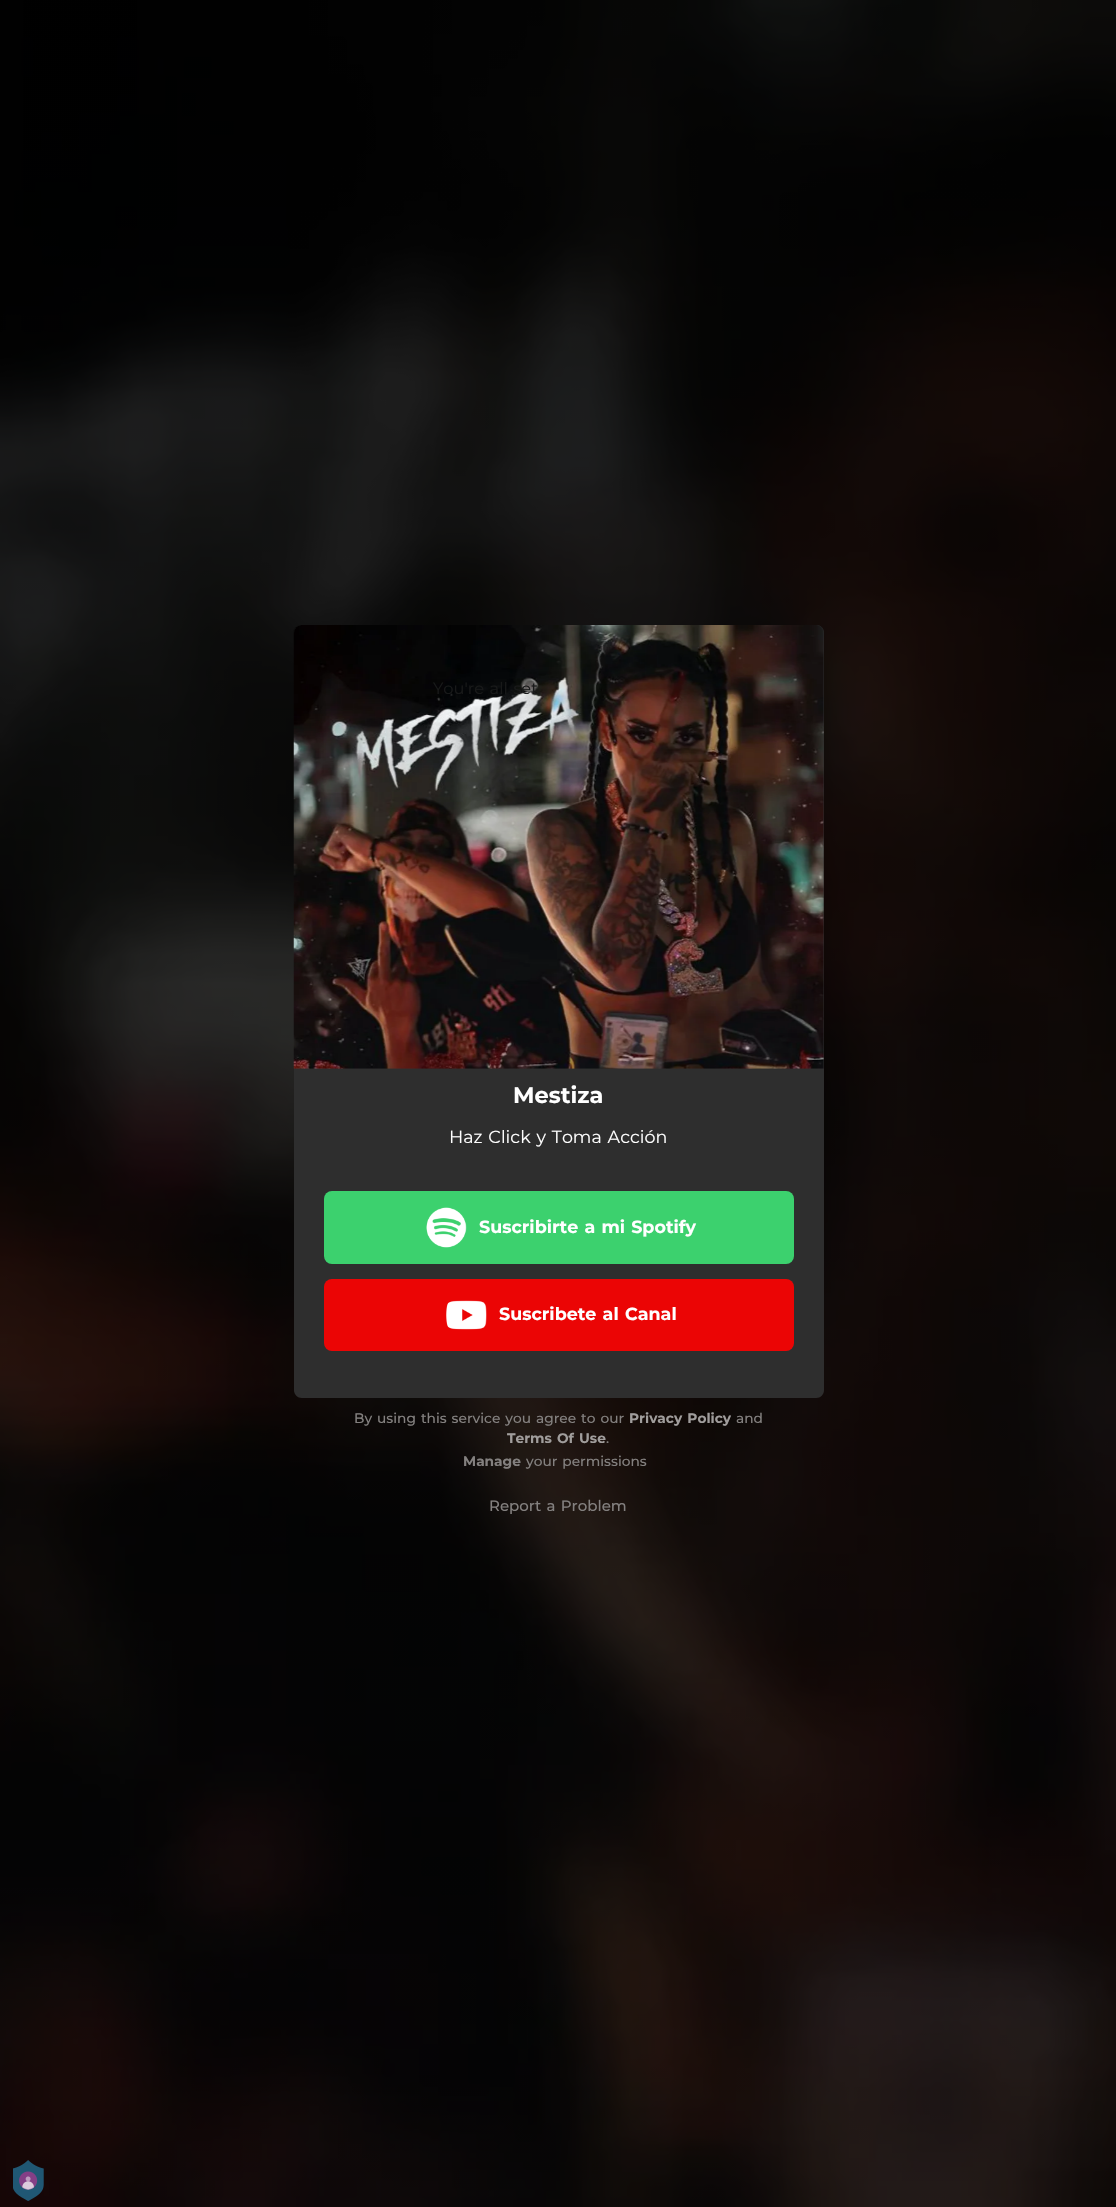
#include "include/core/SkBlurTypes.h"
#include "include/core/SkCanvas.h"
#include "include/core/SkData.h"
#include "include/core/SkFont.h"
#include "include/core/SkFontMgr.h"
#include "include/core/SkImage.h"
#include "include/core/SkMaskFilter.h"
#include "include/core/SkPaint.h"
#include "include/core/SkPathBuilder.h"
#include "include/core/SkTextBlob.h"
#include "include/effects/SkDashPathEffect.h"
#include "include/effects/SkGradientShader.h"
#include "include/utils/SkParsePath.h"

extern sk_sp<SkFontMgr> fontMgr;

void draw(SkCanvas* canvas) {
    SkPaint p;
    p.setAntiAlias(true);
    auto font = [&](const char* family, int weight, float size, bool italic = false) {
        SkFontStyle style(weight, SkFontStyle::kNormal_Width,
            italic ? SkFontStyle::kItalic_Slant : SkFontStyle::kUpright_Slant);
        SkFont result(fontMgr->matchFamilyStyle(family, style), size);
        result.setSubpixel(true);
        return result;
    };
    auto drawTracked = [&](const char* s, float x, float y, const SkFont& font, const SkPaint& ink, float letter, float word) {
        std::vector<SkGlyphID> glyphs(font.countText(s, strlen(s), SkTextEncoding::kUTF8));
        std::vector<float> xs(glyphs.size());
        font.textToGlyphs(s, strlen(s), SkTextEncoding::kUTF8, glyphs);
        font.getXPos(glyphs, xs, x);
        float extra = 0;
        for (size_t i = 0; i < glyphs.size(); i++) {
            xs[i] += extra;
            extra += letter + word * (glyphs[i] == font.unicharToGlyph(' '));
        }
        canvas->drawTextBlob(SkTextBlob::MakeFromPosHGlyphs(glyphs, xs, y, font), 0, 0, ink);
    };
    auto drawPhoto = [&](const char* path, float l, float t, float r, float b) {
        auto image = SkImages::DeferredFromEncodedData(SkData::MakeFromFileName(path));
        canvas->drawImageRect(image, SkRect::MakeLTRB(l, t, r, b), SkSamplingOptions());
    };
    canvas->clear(0xFFFFFFFF);
    drawPhoto("media/1.png", 0, 0, 1116, 2207);
    p.setColor(0xFF2F2F2F);
    canvas->drawPath(SkPathBuilder().moveTo(302, 625).lineTo(816, 625).cubicTo(820.5f, 625, 824, 628.5f, 824, 633).lineTo(824, 1069).lineTo(294, 1069).lineTo(294, 633).cubicTo(294, 628.5f, 297.5f, 625, 302, 625).close().detach(), p);
    drawPhoto("media/2.png", 293, 625, 824, 1069);
    auto font1 = font("Montserrat", 400, 16.25f);
    p.setColor(0xFF181919);
    drawTracked("You're all set", 433, 694, font1, p, 0, 1.25f);
    p.setColor(0xFF2E2E2E);
    canvas->drawPath(SkPathBuilder().moveTo(294, 1069).lineTo(824, 1069).lineTo(824, 1390).cubicTo(824, 1394.5f, 820.5f, 1398, 816, 1398).lineTo(302, 1398).cubicTo(297.5f, 1398, 294, 1394.5f, 294, 1390).close().detach(), p);
    auto font2 = font("Montserrat", 700, 22.5f);
    p.setColor(0xFFFFFFFF);
    canvas->drawString("Mestiza", 513, 1103, font2, p);
    auto font3 = font("Montserrat", 400, 17.5f);
    drawTracked("Haz Click y Toma Acción", 449, 1143, font3, p, 0, 1.25f);
    p.setColor(0xFF3CD16E);
    canvas->drawRoundRect(SkRect::MakeLTRB(324, 1191, 794, 1264), 8, 8, p);
    drawPhoto("media/3.png", 426, 1207, 467, 1248);
    auto font4 = font("Montserrat", 700, 17.5f);
    p.setColor(0xFFFFFFFF);
    drawTracked("Suscribirte a mi Spotify", 479, 1233, font4, p, 0, 1.25f);
    p.setColor(0xFFEB0505);
    canvas->drawRoundRect(SkRect::MakeLTRB(324, 1279, 794, 1351), 8, 8, p);
    drawPhoto("media/4.png", 446, 1300, 487, 1330);
    p.setColor(0xFFFFFFFF);
    drawTracked("Suscribete al Canal", 499, 1320, font4, p, 0, 1.25f);
    auto font5 = font("Montserrat", 500, 13.75f);
    p.setColor(0xFF83807F);
    drawTracked("By using this service you agree to our", 354, 1423, font5, p, 0, 1.25f);
    auto font6 = font("Montserrat", 700, 13.75f);
    p.setColor(0xFFA09D9C);
    drawTracked("Privacy Policy", 629, 1423, font6, p, 0, 1.25f);
    p.setColor(0xFF83807F);
    canvas->drawString("and", 736, 1423, font5, p);
    p.setColor(0xFFA09D9C);
    drawTracked("Terms Of Use", 507, 1443, font6, p, 0, 1.25f);
    p.setColor(0xFF83807F);
    canvas->drawString(".", 606, 1443, font5, p);
    canvas->drawString("Manage", 463, 1466, font6, p);
    drawTracked("your permissions", 526, 1466, font5, p, 0, 1.25f);
    auto font7 = font("Montserrat", 500, 15);
    drawTracked("Report a Problem", 489, 1511, font7, p, 0, 1.25f);
    drawPhoto("media/5.png", 13, 2160, 44, 2201);
}
